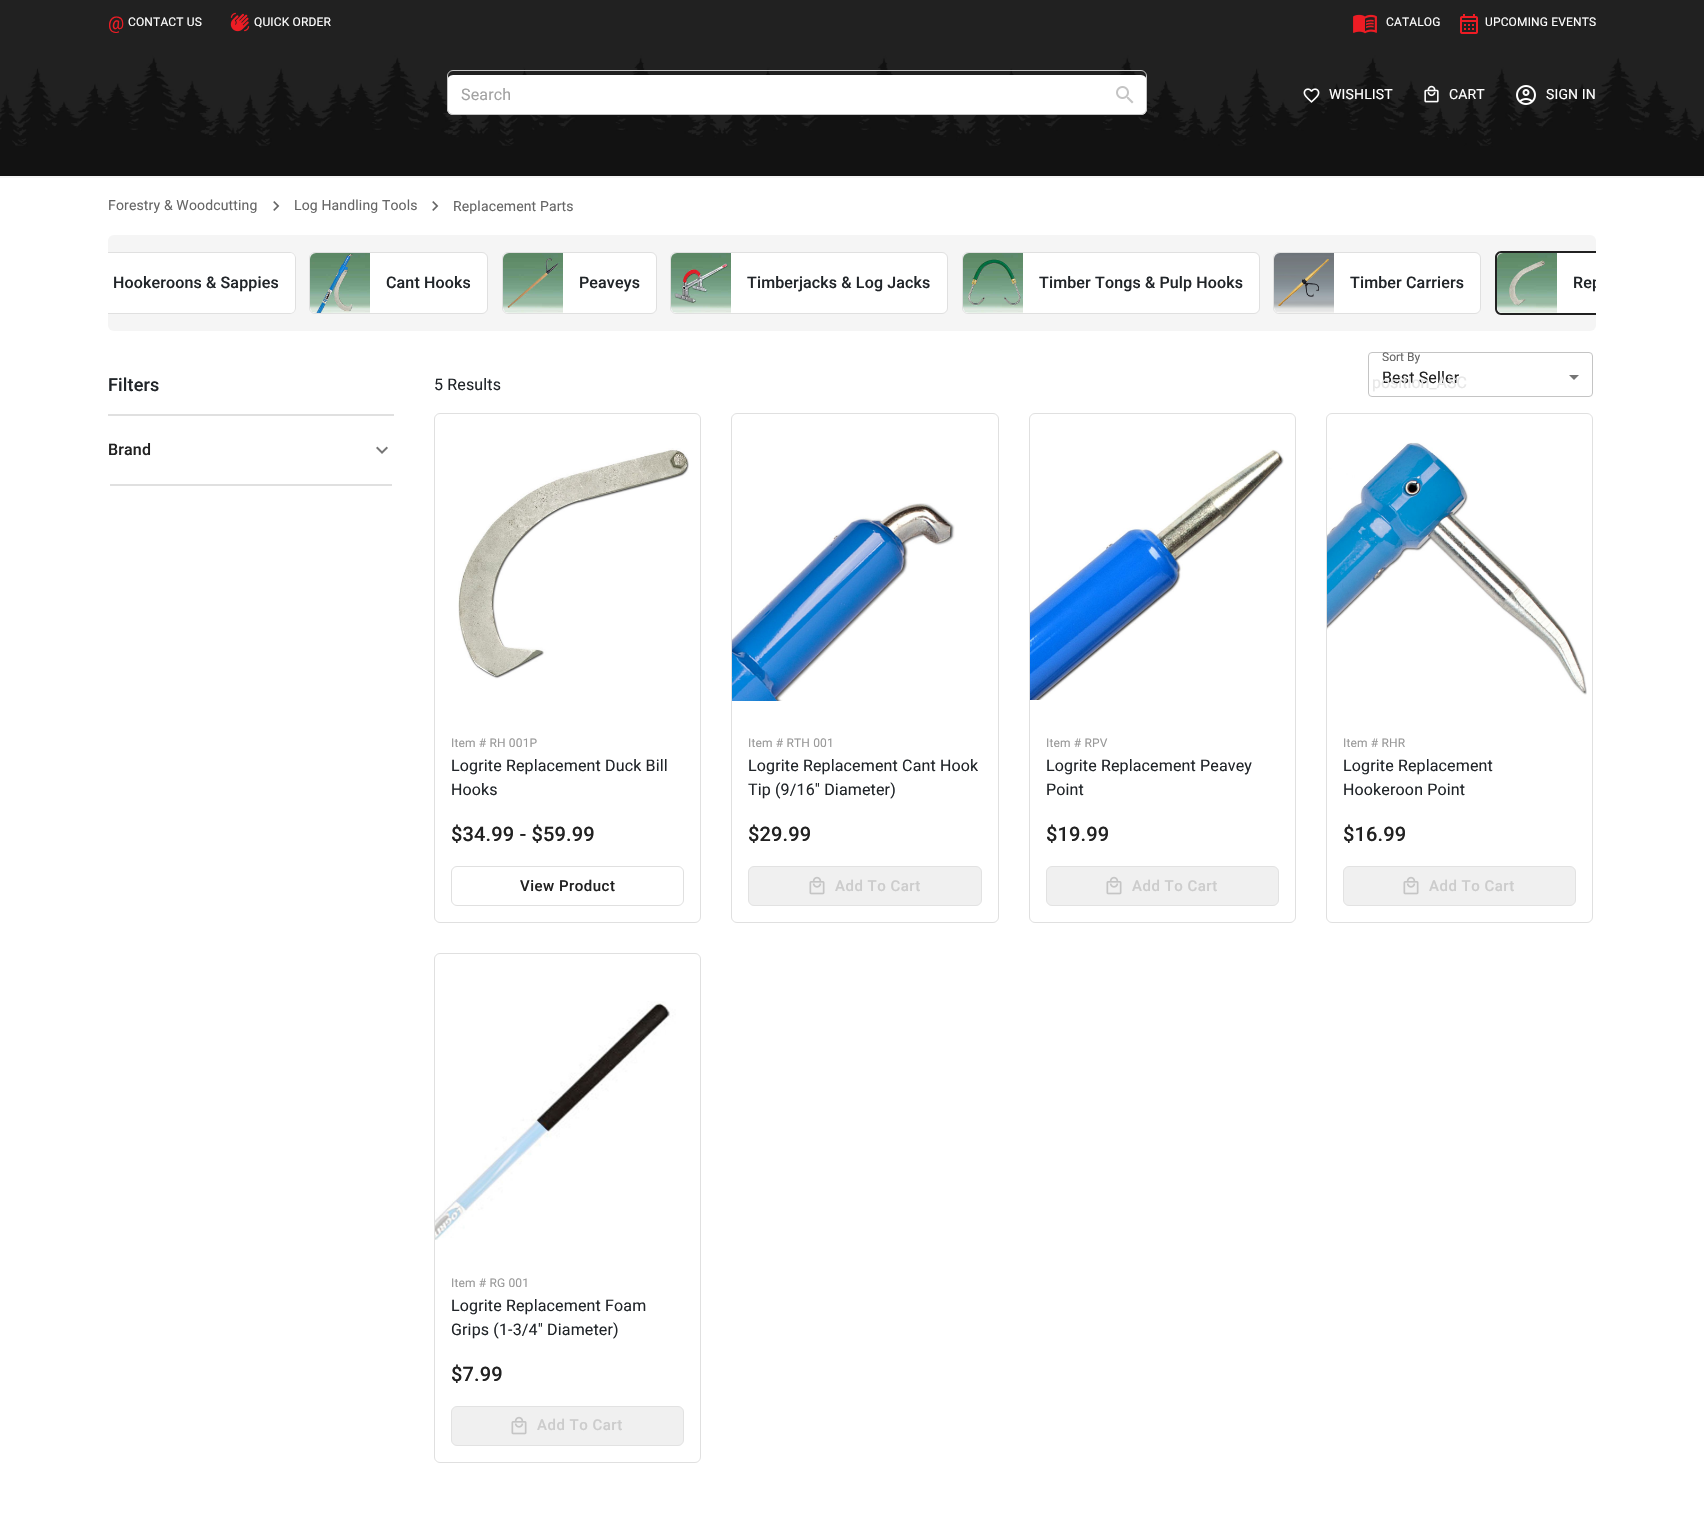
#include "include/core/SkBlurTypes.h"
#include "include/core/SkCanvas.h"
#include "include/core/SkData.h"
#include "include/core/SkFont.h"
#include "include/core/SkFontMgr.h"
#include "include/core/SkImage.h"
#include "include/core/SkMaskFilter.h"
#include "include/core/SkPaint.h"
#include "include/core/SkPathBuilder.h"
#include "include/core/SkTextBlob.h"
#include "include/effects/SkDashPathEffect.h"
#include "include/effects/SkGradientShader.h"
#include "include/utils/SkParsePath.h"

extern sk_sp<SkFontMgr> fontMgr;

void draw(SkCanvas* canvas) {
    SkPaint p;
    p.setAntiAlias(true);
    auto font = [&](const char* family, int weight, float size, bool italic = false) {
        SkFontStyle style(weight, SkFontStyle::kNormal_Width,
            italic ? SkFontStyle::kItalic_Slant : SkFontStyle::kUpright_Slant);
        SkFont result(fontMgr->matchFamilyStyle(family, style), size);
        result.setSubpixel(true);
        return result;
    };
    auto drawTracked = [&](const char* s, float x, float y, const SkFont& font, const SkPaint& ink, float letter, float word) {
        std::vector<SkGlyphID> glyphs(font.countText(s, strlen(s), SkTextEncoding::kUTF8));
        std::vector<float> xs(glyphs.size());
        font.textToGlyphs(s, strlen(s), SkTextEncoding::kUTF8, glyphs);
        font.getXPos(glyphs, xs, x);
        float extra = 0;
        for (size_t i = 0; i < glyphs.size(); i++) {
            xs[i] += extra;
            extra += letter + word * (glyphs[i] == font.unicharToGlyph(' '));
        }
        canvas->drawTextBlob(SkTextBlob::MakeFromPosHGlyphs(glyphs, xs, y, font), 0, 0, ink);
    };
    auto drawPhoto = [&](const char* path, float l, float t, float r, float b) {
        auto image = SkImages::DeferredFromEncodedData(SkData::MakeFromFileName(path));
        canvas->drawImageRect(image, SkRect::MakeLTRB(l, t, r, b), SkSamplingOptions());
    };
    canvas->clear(0xFFFFFFFF);
    drawPhoto("media/1.png", 0, 0, 1704, 176);
    p.setColor(0xFFF5F5F5);
    canvas->drawRect(SkRect::MakeLTRB(0, 176, 1704, 178), p);
    auto font1 = font("Roboto", 400, 18);
    p.setColor(0xFFED1C24);
    drawTracked("@", 108, 29, font1, p, 0.15f, 0);
    auto font2 = font("Roboto", 400, 12);
    p.setColor(0xFFFFFFFF);
    drawTracked("CONTACT US", 128, 26, font2, p, 0.15f, 0);
    drawPhoto("media/2.png", 230, 12, 250, 32);
    drawTracked("QUICK ORDER", 254, 26, font2, p, 0.15f, 0);
    drawPhoto("media/3.png", 1353, 14, 1377, 34);
    drawTracked("CATALOG", 1386, 26, font2, p, 0.15f, 0);
    drawPhoto("media/4.png", 1460, 14, 1478, 34);
    drawTracked("UPCOMING EVENTS", 1485, 26, font2, p, 0.15f, 0);
    canvas->drawRoundRect(SkRect::MakeLTRB(447, 75, 1147, 115), 6, 6, p);
    drawPhoto("media/5.png", 1116, 86, 1134, 104);
    p.setStyle(SkPaint::kStroke_Style);
    p.setStrokeWidth(1);
    p.setColor(0xFFC4C4C4);
    canvas->drawRoundRect(SkRect::MakeLTRB(447.5f, 70.5f, 1146.5f, 114.5f), 5.5f, 5.5f, p);
    auto font3 = font("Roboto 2", 400, 16);
    p.setStyle(SkPaint::kFill_Style);
    p.setColor(0xFFA2A2A2);
    drawTracked("Search", 461, 100, font3, p, 0.15f, 0);
    drawPhoto("media/6.png", 1303, 88, 1320, 103);
    auto font4 = font("Roboto", 400, 14);
    p.setColor(0xFFFFFFFF);
    drawTracked("WISHLIST", 1329, 99, font4, p, 0.15f, 0);
    drawPhoto("media/7.png", 1424, 85, 1439, 103);
    drawTracked("CART", 1449, 99, font4, p, 0.15f, 0);
    drawPhoto("media/8.png", 1516, 85, 1536, 105);
    drawTracked("SIGN IN", 1546, 99, font4, p, 0.15f, 0);
    auto font5 = font("Roboto 2", 400, 14);
    p.setColor(0xFF666666);
    drawTracked("Forestry & Woodcutting", 108, 210, font5, p, 0.15f, 0);
    drawPhoto("media/9.png", 273, 201, 280, 211);
    drawTracked("Log Handling Tools", 294, 210, font5, p, 0.15f, 0);
    drawPhoto("media/9.png", 432, 201, 439, 211);
    drawTracked("Replacement Parts", 453, 211, font5, p, 0.15f, 0);
    p.setColor(0xFFF5F5F5);
    canvas->drawRoundRect(SkRect::MakeLTRB(108, 235, 1596, 331), 6, 6, p);
    p.setColor(0xFFFFFFFF);
    canvas->drawPath(SkPathBuilder().moveTo(108, 252).lineTo(290, 252).cubicTo(293.5f, 252, 296, 254.5f, 296, 258).lineTo(296, 308).cubicTo(296, 311.5f, 293.5f, 314, 290, 314).lineTo(108, 314).close().detach(), p);
    p.setColor(0xFFE0E0E0);
    canvas->drawPath(SkPathBuilder().moveTo(108, 314).lineTo(290, 314).cubicTo(293, 314, 296, 311, 296, 308).lineTo(296, 258).cubicTo(296, 255, 293, 252, 290, 252).lineTo(108, 252).lineTo(108, 253).lineTo(290, 253).cubicTo(293, 253, 295, 255, 295, 258).lineTo(295, 308).cubicTo(295, 311, 293, 313, 290, 313).lineTo(108, 313).close().detach(), p);
    auto font6 = font("Roboto", 500, 16);
    p.setColor(0xFF212529);
    drawTracked("Hookeroons & Sappies", 113, 288, font6, p, 0.15f, 0);
    p.setColor(0xFFFFFFFF);
    canvas->drawRoundRect(SkRect::MakeLTRB(309.5f, 252.5f, 487.5f, 313.5f), 5.5f, 5.5f, p);
    p.setStyle(SkPaint::kStroke_Style);
    p.setColor(0xFFE0E0E0);
    canvas->drawRoundRect(SkRect::MakeLTRB(309.5f, 252.5f, 487.5f, 313.5f), 5.5f, 5.5f, p);
    drawPhoto("media/10.png", 310, 253, 370, 313);
    p.setStyle(SkPaint::kFill_Style);
    p.setColor(0xFF212529);
    drawTracked("Cant Hooks", 386, 288, font6, p, 0.15f, 0);
    p.setColor(0xFFFFFFFF);
    canvas->drawRoundRect(SkRect::MakeLTRB(502.5f, 252.5f, 656.5f, 313.5f), 5.5f, 5.5f, p);
    p.setStyle(SkPaint::kStroke_Style);
    p.setColor(0xFFE0E0E0);
    canvas->drawRoundRect(SkRect::MakeLTRB(502.5f, 252.5f, 656.5f, 313.5f), 5.5f, 5.5f, p);
    drawPhoto("media/11.png", 503, 253, 563, 313);
    p.setStyle(SkPaint::kFill_Style);
    p.setColor(0xFF212529);
    drawTracked("Peaveys", 579, 288, font6, p, 0.15f, 0);
    p.setColor(0xFFFFFFFF);
    canvas->drawRoundRect(SkRect::MakeLTRB(670.5f, 252.5f, 947.5f, 313.5f), 5.5f, 5.5f, p);
    p.setStyle(SkPaint::kStroke_Style);
    p.setColor(0xFFE0E0E0);
    canvas->drawRoundRect(SkRect::MakeLTRB(670.5f, 252.5f, 947.5f, 313.5f), 5.5f, 5.5f, p);
    drawPhoto("media/12.png", 671, 253, 731, 313);
    p.setStyle(SkPaint::kFill_Style);
    p.setColor(0xFF212529);
    drawTracked("Timberjacks & Log Jacks", 747, 288, font6, p, 0.15f, 0);
    p.setColor(0xFFFFFFFF);
    canvas->drawRoundRect(SkRect::MakeLTRB(962.5f, 252.5f, 1259.5f, 313.5f), 5.5f, 5.5f, p);
    p.setStyle(SkPaint::kStroke_Style);
    p.setColor(0xFFE0E0E0);
    canvas->drawRoundRect(SkRect::MakeLTRB(962.5f, 252.5f, 1259.5f, 313.5f), 5.5f, 5.5f, p);
    drawPhoto("media/13.png", 963, 253, 1023, 313);
    p.setStyle(SkPaint::kFill_Style);
    p.setColor(0xFF212529);
    drawTracked("Timber Tongs & Pulp Hooks", 1039, 288, font6, p, 0.15f, 0);
    p.setColor(0xFFFFFFFF);
    canvas->drawRoundRect(SkRect::MakeLTRB(1273.5f, 252.5f, 1480.5f, 313.5f), 5.5f, 5.5f, p);
    p.setStyle(SkPaint::kStroke_Style);
    p.setColor(0xFFE0E0E0);
    canvas->drawRoundRect(SkRect::MakeLTRB(1273.5f, 252.5f, 1480.5f, 313.5f), 5.5f, 5.5f, p);
    drawPhoto("media/14.png", 1274, 253, 1334, 313);
    p.setStyle(SkPaint::kFill_Style);
    p.setColor(0xFF212529);
    drawTracked("Timber Carriers", 1350, 288, font6, p, 0.15f, 0);
    p.setColor(0xFFFFFFFF);
    canvas->drawPath(SkPathBuilder().moveTo(1501, 251).lineTo(1596, 251).lineTo(1596, 315).lineTo(1501, 315).cubicTo(1497.5f, 315, 1495, 312.5f, 1495, 309).lineTo(1495, 257).cubicTo(1495, 253.5f, 1497.5f, 251, 1501, 251).close().detach(), p);
    p.setColor(0xFF212121);
    canvas->drawPath(SkPathBuilder().moveTo(1501, 251).cubicTo(1498, 251, 1495, 254, 1495, 257).lineTo(1495, 309).cubicTo(1495, 312, 1498, 315, 1501, 315).lineTo(1596, 315).lineTo(1596, 313).lineTo(1501, 313).cubicTo(1499, 313, 1497, 311, 1497, 309).lineTo(1497, 257).cubicTo(1497, 255, 1499, 253, 1501, 253).lineTo(1596, 253).lineTo(1596, 251).close().detach(), p);
    drawPhoto("media/15.png", 1497, 253, 1557, 313);
    canvas->save();
    canvas->clipPath(SkPathBuilder().moveTo(114, 235).lineTo(1590, 235).cubicTo(1593.5f, 235, 1596, 237.5f, 1596, 241).lineTo(1596, 325).cubicTo(1596, 328.5f, 1593.5f, 331, 1590, 331).lineTo(114, 331).cubicTo(110.5f, 331, 108, 328.5f, 108, 325).lineTo(108, 241).cubicTo(108, 237.5f, 110.5f, 235, 114, 235).close().detach(), true);
    p.setColor(0xFF212529);
    drawTracked("Rep", 1573, 288, font6, p, 0.15f, 0);
    canvas->restore();
    auto font7 = font("Roboto", 500, 18);
    drawTracked("Filters", 108, 391, font7, p, 0.15f, 0);
    p.setColor(0xFFE0E0E0);
    canvas->drawRect(SkRect::MakeLTRB(108, 414, 394, 416), p);
    canvas->drawRect(SkRect::MakeLTRB(110, 484, 392, 486), p);
    p.setColor(0xFF212121);
    drawTracked("Brand", 108, 455, font6, p, 0.15f, 0);
    drawPhoto("media/16.png", 376, 446, 388, 454);
    auto font8 = font("Roboto", 400, 16);
    p.setColor(0xFF212529);
    drawTracked("5 Results", 434, 390, font8, p, 0.15f, 0);
    p.setColor(0xFF757575);
    canvas->drawPath(SkPathBuilder().moveTo(1569, 375).lineTo(1574, 380).lineTo(1579, 375).close().detach(), p);
    p.setStyle(SkPaint::kStroke_Style);
    p.setColor(0xFFC4C4C4);
    canvas->drawRoundRect(SkRect::MakeLTRB(1368.5f, 352.5f, 1592.5f, 396.5f), 3.5f, 3.5f, p);
    auto font9 = font("Roboto 2", 400, 12);
    p.setStyle(SkPaint::kFill_Style);
    p.setColor(0xFF666666);
    canvas->drawString("Sort By", 1382, 361, font9, p);
    p.setColor(0xFF212121);
    drawTracked("Best Seller", 1382, 383, font3, p, 0.15f, 0);
    p.setColor(0xFFE7E7E7);
    canvas->drawString("position_ASC", 1372, 388, font3, p);
    p.setStyle(SkPaint::kStroke_Style);
    p.setColor(0xFFE0E0E0);
    canvas->drawRoundRect(SkRect::MakeLTRB(434.5f, 413.5f, 700.5f, 922.5f), 5.5f, 5.5f, p);
    drawPhoto("media/17.png", 458, 448, 689, 679);
    p.setStyle(SkPaint::kFill_Style);
    p.setColor(0xFF999999);
    drawTracked("Item # RH 001P", 451, 747, font2, p, 0.15f, 0);
    p.setColor(0xFF212529);
    drawTracked("Logrite Replacement Duck Bill", 451, 771, font8, p, 0.15f, 0);
    drawTracked("Hooks", 451, 795, font8, p, 0.15f, 0);
    auto font10 = font("Roboto", 500, 20);
    p.setColor(0xFF212121);
    drawTracked("$34.99 - $59.99", 451, 841, font10, p, 0.15f, 0);
    p.setStyle(SkPaint::kStroke_Style);
    p.setColor(0xFFE0E0E0);
    canvas->drawRoundRect(SkRect::MakeLTRB(451.5f, 866.5f, 683.5f, 905.5f), 5.5f, 5.5f, p);
    auto font11 = font("Roboto", 500, 15);
    p.setStyle(SkPaint::kFill_Style);
    p.setColor(0xFF212121);
    drawTracked("View Product", 520, 891, font11, p, 0.5f, 0);
    p.setStyle(SkPaint::kStroke_Style);
    p.setColor(0xFFE0E0E0);
    canvas->drawRoundRect(SkRect::MakeLTRB(731.5f, 413.5f, 998.5f, 922.5f), 5.5f, 5.5f, p);
    drawPhoto("media/18.png", 732, 503, 955, 701);
    p.setStyle(SkPaint::kFill_Style);
    p.setColor(0xFF999999);
    drawTracked("Item # RTH 001", 748, 747, font2, p, 0.15f, 0);
    p.setColor(0xFF212529);
    drawTracked("Logrite Replacement Cant Hook", 748, 771, font8, p, 0.15f, 0);
    drawTracked("Tip (9/16\" Diameter)", 748, 795, font8, p, 0.15f, 0);
    p.setColor(0xFF212121);
    drawTracked("$29.99", 748, 841, font10, p, 0.15f, 0);
    p.setColor(0xFFF0F0F0);
    canvas->drawRoundRect(SkRect::MakeLTRB(748.5f, 866.5f, 981.5f, 905.5f), 5.5f, 5.5f, p);
    p.setStyle(SkPaint::kStroke_Style);
    p.setColor(0xFFE2E2E2);
    canvas->drawRoundRect(SkRect::MakeLTRB(748.5f, 866.5f, 981.5f, 905.5f), 5.5f, 5.5f, p);
    drawPhoto("media/19.png", 809, 876, 825, 895);
    p.setStyle(SkPaint::kFill_Style);
    p.setColor(0xFFCCCCCC);
    drawTracked("Add To Cart", 835, 891, font11, p, 0.5f, 0);
    p.setStyle(SkPaint::kStroke_Style);
    p.setColor(0xFFE0E0E0);
    canvas->drawRoundRect(SkRect::MakeLTRB(1029.5f, 413.5f, 1295.5f, 922.5f), 5.5f, 5.5f, p);
    drawPhoto("media/20.png", 1030, 449, 1284, 700);
    p.setStyle(SkPaint::kFill_Style);
    p.setColor(0xFF999999);
    drawTracked("Item # RPV", 1046, 747, font2, p, 0.15f, 0);
    p.setColor(0xFF212529);
    drawTracked("Logrite Replacement Peavey", 1046, 771, font8, p, 0.15f, 0);
    drawTracked("Point", 1046, 795, font8, p, 0.15f, 0);
    p.setColor(0xFF212121);
    drawTracked("$19.99", 1046, 841, font10, p, 0.15f, 0);
    p.setColor(0xFFF0F0F0);
    canvas->drawRoundRect(SkRect::MakeLTRB(1046.5f, 866.5f, 1278.5f, 905.5f), 5.5f, 5.5f, p);
    p.setStyle(SkPaint::kStroke_Style);
    p.setColor(0xFFE2E2E2);
    canvas->drawRoundRect(SkRect::MakeLTRB(1046.5f, 866.5f, 1278.5f, 905.5f), 5.5f, 5.5f, p);
    drawPhoto("media/19.png", 1106, 876, 1122, 895);
    p.setStyle(SkPaint::kFill_Style);
    p.setColor(0xFFCCCCCC);
    drawTracked("Add To Cart", 1132, 891, font11, p, 0.5f, 0);
    p.setStyle(SkPaint::kStroke_Style);
    p.setColor(0xFFE0E0E0);
    canvas->drawRoundRect(SkRect::MakeLTRB(1326.5f, 413.5f, 1592.5f, 922.5f), 5.5f, 5.5f, p);
    drawPhoto("media/21.png", 1327, 442, 1587, 695);
    p.setStyle(SkPaint::kFill_Style);
    p.setColor(0xFF999999);
    drawTracked("Item # RHR", 1343, 747, font2, p, 0.15f, 0);
    p.setColor(0xFF212529);
    drawTracked("Logrite Replacement", 1343, 771, font8, p, 0.15f, 0);
    drawTracked("Hookeroon Point", 1343, 795, font8, p, 0.15f, 0);
    p.setColor(0xFF212121);
    drawTracked("$16.99", 1343, 841, font10, p, 0.15f, 0);
    p.setColor(0xFFF0F0F0);
    canvas->drawRoundRect(SkRect::MakeLTRB(1343.5f, 866.5f, 1575.5f, 905.5f), 5.5f, 5.5f, p);
    p.setStyle(SkPaint::kStroke_Style);
    p.setColor(0xFFE2E2E2);
    canvas->drawRoundRect(SkRect::MakeLTRB(1343.5f, 866.5f, 1575.5f, 905.5f), 5.5f, 5.5f, p);
    drawPhoto("media/19.png", 1403, 876, 1419, 895);
    p.setStyle(SkPaint::kFill_Style);
    p.setColor(0xFFCCCCCC);
    drawTracked("Add To Cart", 1429, 891, font11, p, 0.5f, 0);
    p.setStyle(SkPaint::kStroke_Style);
    p.setColor(0xFFE0E0E0);
    canvas->drawRoundRect(SkRect::MakeLTRB(434.5f, 953.5f, 700.5f, 1462.5f), 5.5f, 5.5f, p);
    drawPhoto("media/22.png", 435, 1001, 676, 1240);
    p.setStyle(SkPaint::kFill_Style);
    p.setColor(0xFF999999);
    drawTracked("Item # RG 001", 451, 1287, font2, p, 0.15f, 0);
    p.setColor(0xFF212529);
    drawTracked("Logrite Replacement Foam", 451, 1311, font8, p, 0.15f, 0);
    drawTracked("Grips (1-3/4\" Diameter)", 451, 1335, font8, p, 0.15f, 0);
    p.setColor(0xFF212121);
    drawTracked("$7.99", 451, 1381, font10, p, 0.15f, 0);
    p.setColor(0xFFF0F0F0);
    canvas->drawRoundRect(SkRect::MakeLTRB(451.5f, 1406.5f, 683.5f, 1445.5f), 5.5f, 5.5f, p);
    p.setStyle(SkPaint::kStroke_Style);
    p.setColor(0xFFE2E2E2);
    canvas->drawRoundRect(SkRect::MakeLTRB(451.5f, 1406.5f, 683.5f, 1445.5f), 5.5f, 5.5f, p);
    drawPhoto("media/19.png", 511, 1416, 527, 1435);
    p.setStyle(SkPaint::kFill_Style);
    p.setColor(0xFFCCCCCC);
    drawTracked("Add To Cart", 537, 1430, font11, p, 0.5f, 0);
}
